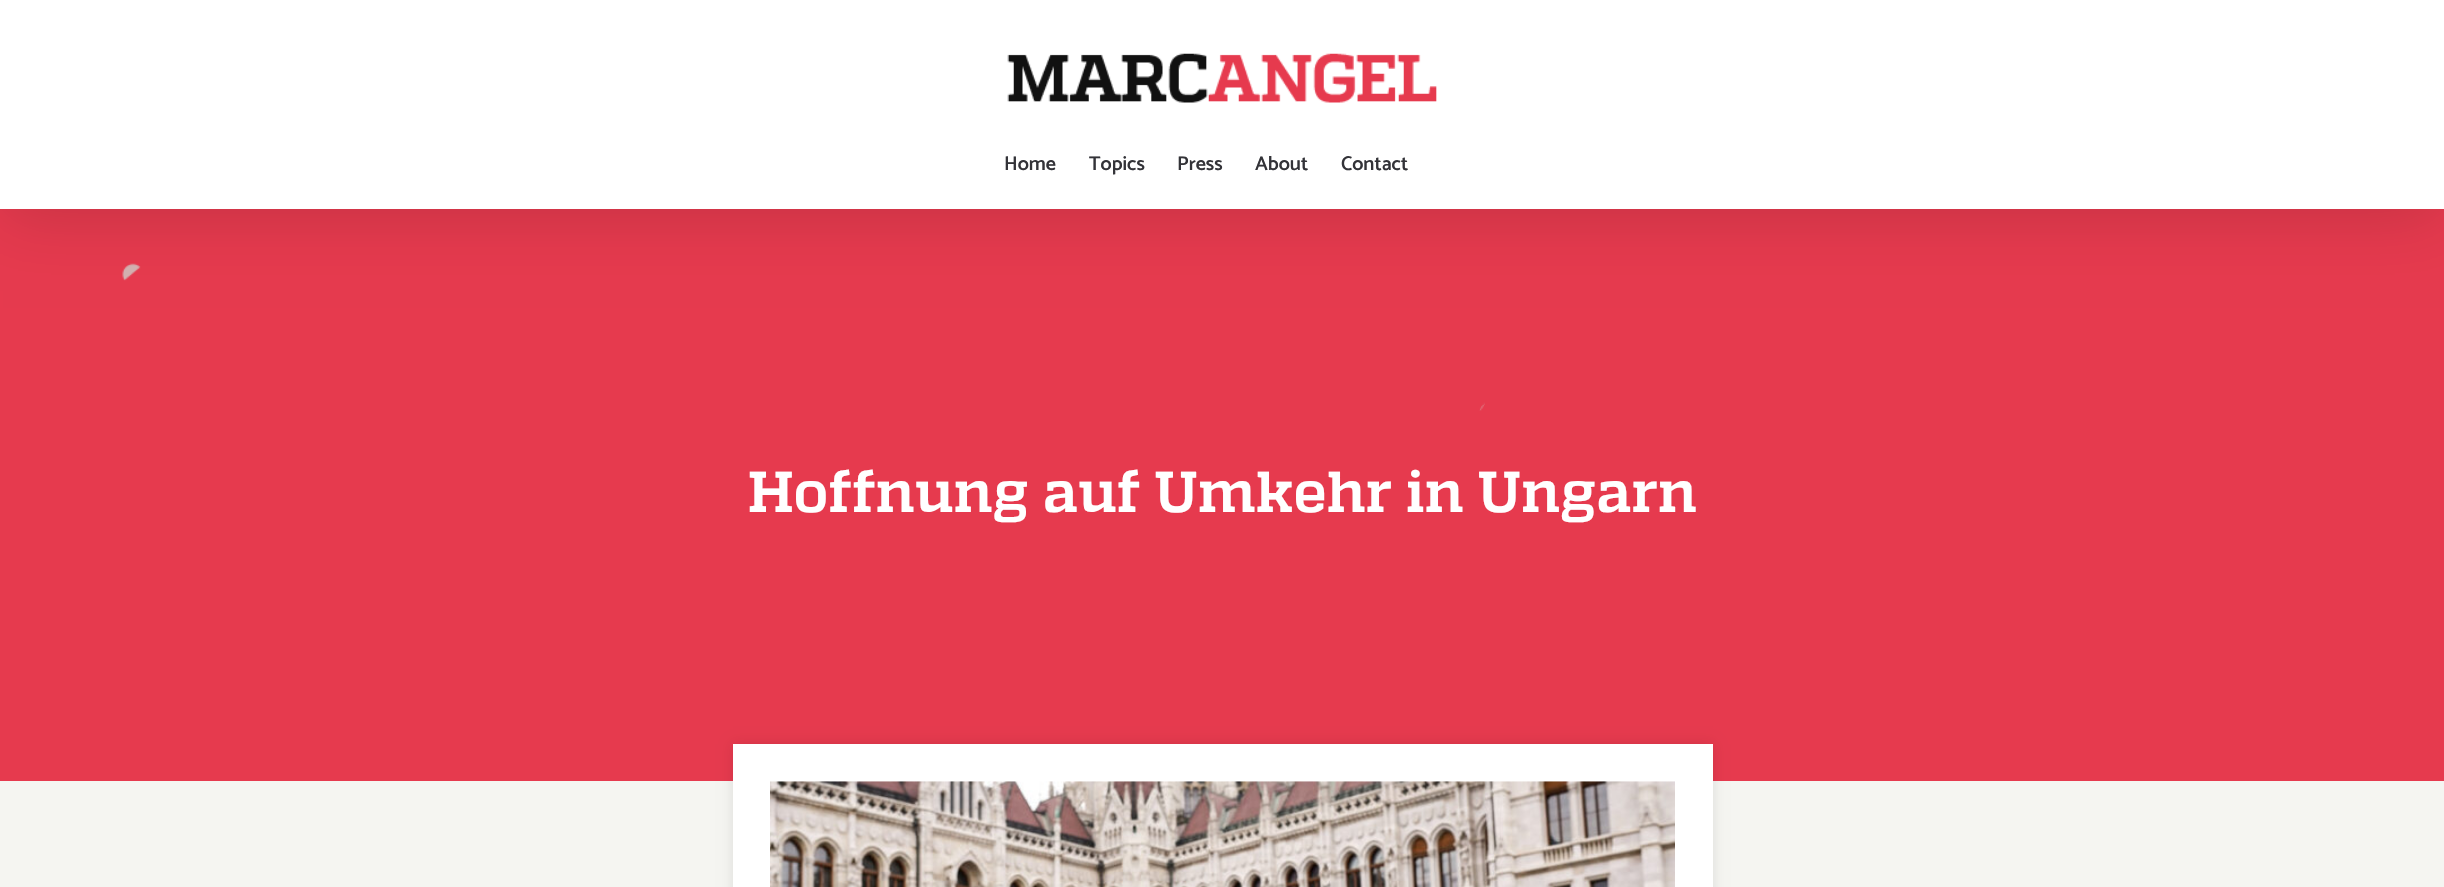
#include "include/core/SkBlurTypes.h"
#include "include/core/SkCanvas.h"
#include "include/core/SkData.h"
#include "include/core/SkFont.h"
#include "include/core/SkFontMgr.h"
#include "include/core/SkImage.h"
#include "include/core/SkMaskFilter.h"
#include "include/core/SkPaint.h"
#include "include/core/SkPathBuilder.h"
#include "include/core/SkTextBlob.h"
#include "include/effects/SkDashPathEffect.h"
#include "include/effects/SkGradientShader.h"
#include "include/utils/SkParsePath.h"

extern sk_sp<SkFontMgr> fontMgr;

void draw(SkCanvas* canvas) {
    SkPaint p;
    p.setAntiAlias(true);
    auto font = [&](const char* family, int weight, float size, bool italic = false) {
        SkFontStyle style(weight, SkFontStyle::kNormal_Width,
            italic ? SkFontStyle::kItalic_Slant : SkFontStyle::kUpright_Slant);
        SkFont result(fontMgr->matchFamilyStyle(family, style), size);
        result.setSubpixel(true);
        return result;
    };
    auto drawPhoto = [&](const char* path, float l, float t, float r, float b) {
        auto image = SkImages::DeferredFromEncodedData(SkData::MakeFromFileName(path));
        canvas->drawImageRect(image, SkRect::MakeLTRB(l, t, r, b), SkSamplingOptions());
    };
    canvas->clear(0xFFF5F5F1);
    p.setColor(0xFFE63A4E);
    canvas->drawRect(SkRect::MakeLTRB(0, 209, 2444, 781), p);
    drawPhoto("media/2.png", 122, 263, 1485, 411);
    p.setColor(0x24000000);
    p.setMaskFilter(SkMaskFilter::MakeBlur(kNormal_SkBlurStyle, 31));
    canvas->drawRect(SkRect::MakeLTRB(3, 15, 2443, 216), p);
    p.setMaskFilter(nullptr);
    p.setColor(0xFFFFFFFF);
    canvas->drawRect(SkRect::MakeLTRB(0, 0, 2444, 209), p);
    drawPhoto("media/1.png", 1007, 53, 1437, 103);
    auto font1 = font("Catamaran", 100, 20);
    p.setColor(0xFF333338);
    {
        const struct { const char* s; float x, y; } items[] = {
            {"Home", 1004, 170},
            {"Topics", 1089, 170},
            {"Press", 1177, 170},
            {"About", 1255, 170},
            {"Contact", 1341, 170},
        };
        for (auto [s, x, y] : items) {
            canvas->drawString(s, x, y, font1, p);
        }
    }
    auto font2 = font("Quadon", 700, 57.5f);
    p.setColor(0xFFFFFFFF);
    canvas->drawString("Hoffnung auf Umkehr in Ungarn", 748, 512, font2, p);
    p.setColor(0x1A000000);
    p.setMaskFilter(SkMaskFilter::MakeBlur(kNormal_SkBlurStyle, 6));
    canvas->drawRect(SkRect::MakeLTRB(733, 744, 1713, 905), p);
    p.setMaskFilter(nullptr);
    p.setColor(0xFFFFFFFF);
    canvas->drawRect(SkRect::MakeLTRB(733, 744, 1713, 887), p);
    drawPhoto("media/3.png", 770, 781, 1675, 887);
}
